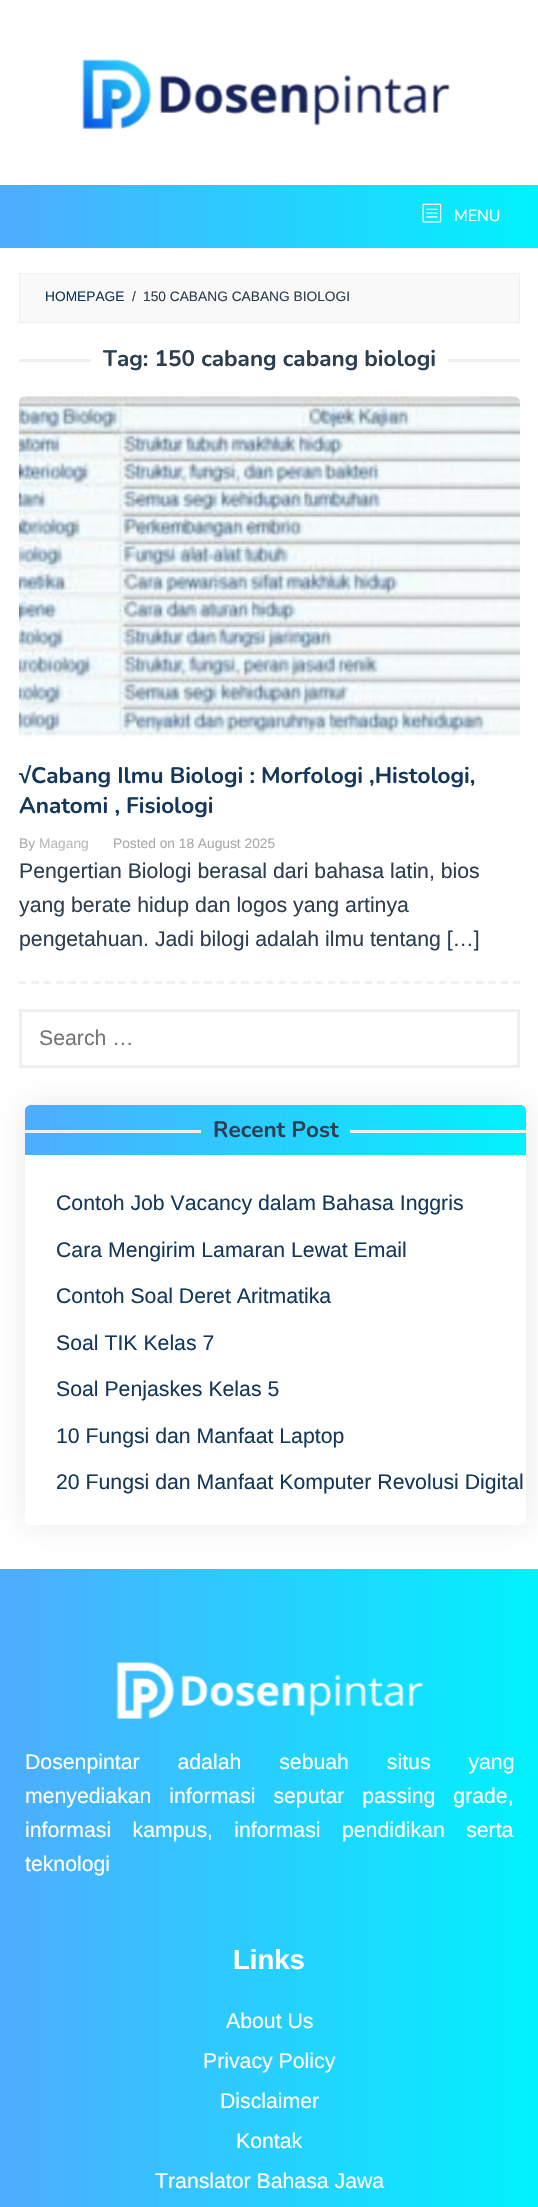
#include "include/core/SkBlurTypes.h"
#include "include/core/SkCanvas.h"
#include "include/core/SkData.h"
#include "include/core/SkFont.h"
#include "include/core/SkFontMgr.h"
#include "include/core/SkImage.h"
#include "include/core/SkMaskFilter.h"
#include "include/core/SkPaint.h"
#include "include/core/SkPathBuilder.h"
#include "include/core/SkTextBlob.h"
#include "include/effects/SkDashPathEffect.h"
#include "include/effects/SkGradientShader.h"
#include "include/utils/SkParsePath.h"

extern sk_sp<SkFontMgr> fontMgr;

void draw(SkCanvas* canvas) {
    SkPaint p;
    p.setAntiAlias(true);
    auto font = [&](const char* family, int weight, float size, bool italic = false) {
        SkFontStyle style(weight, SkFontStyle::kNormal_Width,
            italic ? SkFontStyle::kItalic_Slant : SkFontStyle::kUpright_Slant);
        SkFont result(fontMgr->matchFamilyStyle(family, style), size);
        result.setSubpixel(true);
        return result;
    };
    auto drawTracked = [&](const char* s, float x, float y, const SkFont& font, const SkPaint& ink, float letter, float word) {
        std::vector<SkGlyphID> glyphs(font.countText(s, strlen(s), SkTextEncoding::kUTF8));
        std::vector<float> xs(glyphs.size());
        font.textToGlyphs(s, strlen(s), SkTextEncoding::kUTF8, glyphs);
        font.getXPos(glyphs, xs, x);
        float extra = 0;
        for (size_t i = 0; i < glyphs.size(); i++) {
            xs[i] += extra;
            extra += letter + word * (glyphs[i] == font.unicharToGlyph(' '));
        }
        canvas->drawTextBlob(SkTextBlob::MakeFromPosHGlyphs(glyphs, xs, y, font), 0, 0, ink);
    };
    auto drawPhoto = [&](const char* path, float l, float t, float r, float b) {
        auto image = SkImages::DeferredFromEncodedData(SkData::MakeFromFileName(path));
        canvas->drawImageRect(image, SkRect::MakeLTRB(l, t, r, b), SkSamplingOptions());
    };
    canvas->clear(0xFFFFFFFF);
    drawPhoto("media/1.png", 82, 59, 450, 130);
    {
        const SkColor colors[] = {0xFF4FACFE, 0xFF00F2FE};
        const float stops[] = {0, 1};
        const SkPoint ends[] = {{0, 216}, {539, 216}};
        p.setShader(SkGradientShader::MakeLinear(ends, colors, stops, 2, SkTileMode::kClamp));
        p.setAlpha(255);
    }
    canvas->drawRect(SkRect::MakeLTRB(0, 185, 538, 248), p);
    drawPhoto("media/2.png", 422, 203, 442, 223);
    auto font1 = font("Nunito", 400, 16);
    p.setShader(nullptr);
    p.setColor(0xFFFFFFFF);
    canvas->drawString("MENU", 454, 221, font1, p);
    p.setColor(0xFFF9F9F9);
    canvas->drawRect(SkRect::MakeLTRB(19.5f, 273.5f, 519.5f, 322.5f), p);
    p.setStyle(SkPaint::kStroke_Style);
    p.setStrokeWidth(1);
    p.setColor(0xFFECF0F1);
    canvas->drawRect(SkRect::MakeLTRB(19.5f, 273.5f, 519.5f, 322.5f), p);
    auto font2 = font("Liberation Sans", 400, 13.75f);
    p.setStyle(SkPaint::kFill_Style);
    p.setColor(0xFF14375A);
    canvas->drawString("HOMEPAGE", 45, 301, font2, p);
    p.setColor(0xFF2C3E50);
    canvas->drawString("/", 132, 301, font2, p);
    canvas->drawString("150 CABANG CABANG BIOLOGI", 143, 301, font2, p);
    p.setColor(0xFFECF0F1);
    canvas->drawRect(SkRect::MakeLTRB(19, 359, 91, 362), p);
    auto font3 = font("Nunito", 700, 22.5f);
    p.setColor(0xFF2C3E50);
    canvas->drawString("Tag: 150 cabang cabang biologi", 103, 366, font3, p);
    p.setColor(0xFFECF0F1);
    canvas->drawRect(SkRect::MakeLTRB(448, 359, 520, 362), p);
    p.setStyle(SkPaint::kStroke_Style);
    p.setStrokeWidth(2.5f);
    p.setPathEffect(SkDashPathEffect::Make({{7.5f, 4.85f}}, 0));
    canvas->drawPath(SkPathBuilder().moveTo(19, 982.5f).lineTo(520, 982.5f).detach(), p);
    p.setPathEffect(nullptr);
    drawPhoto("media/3.png", 18, 396, 520, 737);
    auto font4 = font("Liberation Sans", 700, 22.5f);
    p.setStyle(SkPaint::kFill_Style);
    p.setColor(0xFF14375A);
    canvas->drawString("√", 19, 783, font4, p);
    canvas->drawString("Cabang Ilmu Biologi : Morfologi ,Histologi,", 31, 783, font3, p);
    canvas->drawString("Anatomi , Fisiologi", 19, 813, font3, p);
    p.setColor(0xFFAAAAAA);
    canvas->drawString("By", 19, 848, font2, p);
    p.setColor(0xFFBBBBBB);
    canvas->drawString("Magang", 39, 848, font2, p);
    p.setColor(0xFFAAAAAA);
    canvas->drawString("Posted on 18 August 2025", 113, 848, font2, p);
    auto font5 = font("Liberation Sans", 400, 21.25f);
    p.setColor(0xFF2C3E50);
    {
        const struct { const char* s; float x, y; } items[] = {
            {"Pengertian Biologi berasal dari bahasa latin, bios", 19, 878},
            {"yang berate hidup dan logos yang artinya", 19, 912},
            {"pengetahuan. Jadi bilogi adalah ilmu tentang […]", 19, 946},
        };
        for (auto [s, x, y] : items) {
            canvas->drawString(s, x, y, font5, p);
        }
    }
    p.setStyle(SkPaint::kStroke_Style);
    p.setStrokeWidth(3);
    p.setColor(0xFFECF0F1);
    canvas->drawRect(SkRect::MakeLTRB(20.5f, 1010.5f, 518.5f, 1066.5f), p);
    p.setStyle(SkPaint::kFill_Style);
    p.setColor(0xFF757575);
    canvas->drawString("Search …", 39, 1045, font5, p);
    canvas->save();
    canvas->clipPath(SkPathBuilder(SkPathFillType::kEvenOdd).moveTo(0, 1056).lineTo(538, 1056).lineTo(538, 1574).lineTo(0, 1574).close().moveTo(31, 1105).lineTo(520, 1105).cubicTo(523.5f, 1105, 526, 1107.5f, 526, 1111).lineTo(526, 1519).cubicTo(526, 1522.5f, 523.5f, 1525, 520, 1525).lineTo(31, 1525).cubicTo(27.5f, 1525, 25, 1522.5f, 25, 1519).lineTo(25, 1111).cubicTo(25, 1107.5f, 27.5f, 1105, 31, 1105).close().detach(), true);
    p.setColor(0x1A323232);
    p.setMaskFilter(SkMaskFilter::MakeBlur(kNormal_SkBlurStyle, 15.5f));
    canvas->drawRoundRect(SkRect::MakeLTRB(24, 1104, 528, 1526), 8, 8, p);
    p.setMaskFilter(nullptr);
    canvas->restore();
    {
        const SkColor colors[] = {0xFF4FACFE, 0xFF00F2FE};
        const float stops[] = {0, 1};
        const SkPoint ends[] = {{25, 1130}, {526, 1130}};
        p.setShader(SkGradientShader::MakeLinear(ends, colors, stops, 2, SkTileMode::kClamp));
        p.setAlpha(255);
    }
    canvas->drawPath(SkPathBuilder().moveTo(31, 1105).lineTo(520, 1105).cubicTo(523.5f, 1105, 526, 1107.5f, 526, 1111).lineTo(526, 1155).lineTo(25, 1155).lineTo(25, 1111).cubicTo(25, 1107.5f, 27.5f, 1105, 31, 1105).close().detach(), p);
    p.setShader(nullptr);
    p.setColor(0xFFECF0F1);
    canvas->drawRect(SkRect::MakeLTRB(25, 1130, 201, 1133), p);
    p.setColor(0xFF2C3E50);
    canvas->drawString("Recent Post", 213, 1137, font3, p);
    p.setColor(0xFFECF0F1);
    canvas->drawRect(SkRect::MakeLTRB(350, 1130, 526, 1133), p);
    p.setColor(0xFF14375A);
    {
        const struct { const char* s; float x, y; } items[] = {
            {"Contoh Job Vacancy dalam Bahasa Inggris", 56, 1210},
            {"Cara Mengirim Lamaran Lewat Email", 56, 1257},
            {"Contoh Soal Deret Aritmatika", 56, 1303},
            {"Soal TIK Kelas 7", 56, 1350},
            {"Soal Penjaskes Kelas 5", 56, 1396},
            {"10 Fungsi dan Manfaat Laptop", 56, 1443},
            {"20 Fungsi dan Manfaat Komputer Revolusi Digital", 56, 1489},
        };
        for (auto [s, x, y] : items) {
            canvas->drawString(s, x, y, font5, p);
        }
    }
    {
        const SkColor colors[] = {0xFF4FACFE, 0xFF00F2FE};
        const float stops[] = {0, 1};
        const SkPoint ends[] = {{0, 2056}, {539, 2056}};
        p.setShader(SkGradientShader::MakeLinear(ends, colors, stops, 2, SkTileMode::kClamp));
        p.setAlpha(255);
    }
    canvas->drawRect(SkRect::MakeLTRB(0, 1569, 538, 2207), p);
    drawPhoto("media/4.png", 116, 1662, 423, 1719);
    p.setShader(nullptr);
    p.setColor(0xFFFFFFFF);
    drawTracked("Dosenpintar adalah sebuah situs yang", 25, 1769, font5, p, 0, 32);
    drawTracked("menyediakan informasi seputar passing grade,", 25, 1803, font5, p, 0, 12);
    drawTracked("informasi kampus, informasi pendidikan serta", 25, 1837, font5, p, 0, 15.5f);
    canvas->drawString("teknologi", 25, 1871, font5, p);
    auto font6 = font("Liberation Sans", 700, 27.5f);
    canvas->drawString("Links", 233, 1969, font6, p);
    {
        const struct { const char* s; float x, y; } items[] = {
            {"About Us", 226, 2028},
            {"Privacy Policy", 203, 2068},
            {"Disclaimer", 220, 2108},
            {"Kontak", 236, 2148},
            {"Translator Bahasa Jawa", 155, 2188},
        };
        for (auto [s, x, y] : items) {
            canvas->drawString(s, x, y, font5, p);
        }
    }
}
